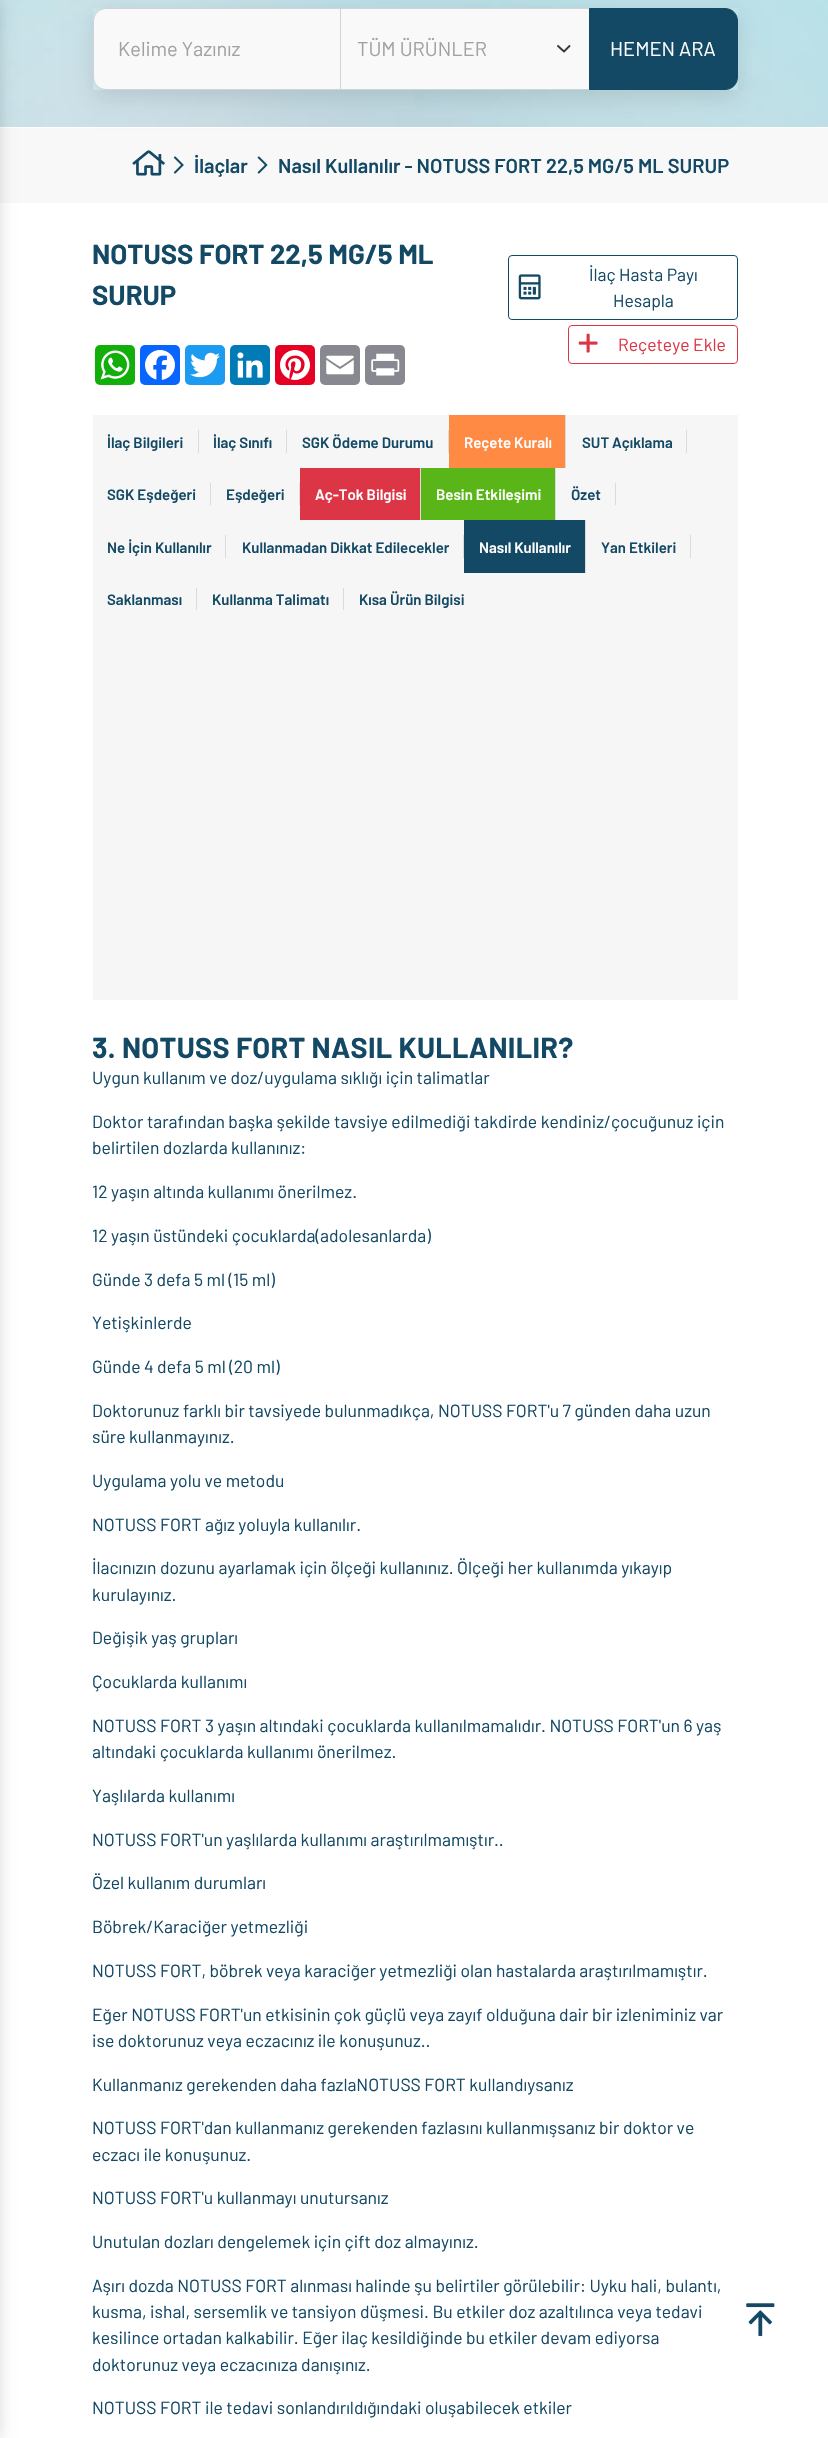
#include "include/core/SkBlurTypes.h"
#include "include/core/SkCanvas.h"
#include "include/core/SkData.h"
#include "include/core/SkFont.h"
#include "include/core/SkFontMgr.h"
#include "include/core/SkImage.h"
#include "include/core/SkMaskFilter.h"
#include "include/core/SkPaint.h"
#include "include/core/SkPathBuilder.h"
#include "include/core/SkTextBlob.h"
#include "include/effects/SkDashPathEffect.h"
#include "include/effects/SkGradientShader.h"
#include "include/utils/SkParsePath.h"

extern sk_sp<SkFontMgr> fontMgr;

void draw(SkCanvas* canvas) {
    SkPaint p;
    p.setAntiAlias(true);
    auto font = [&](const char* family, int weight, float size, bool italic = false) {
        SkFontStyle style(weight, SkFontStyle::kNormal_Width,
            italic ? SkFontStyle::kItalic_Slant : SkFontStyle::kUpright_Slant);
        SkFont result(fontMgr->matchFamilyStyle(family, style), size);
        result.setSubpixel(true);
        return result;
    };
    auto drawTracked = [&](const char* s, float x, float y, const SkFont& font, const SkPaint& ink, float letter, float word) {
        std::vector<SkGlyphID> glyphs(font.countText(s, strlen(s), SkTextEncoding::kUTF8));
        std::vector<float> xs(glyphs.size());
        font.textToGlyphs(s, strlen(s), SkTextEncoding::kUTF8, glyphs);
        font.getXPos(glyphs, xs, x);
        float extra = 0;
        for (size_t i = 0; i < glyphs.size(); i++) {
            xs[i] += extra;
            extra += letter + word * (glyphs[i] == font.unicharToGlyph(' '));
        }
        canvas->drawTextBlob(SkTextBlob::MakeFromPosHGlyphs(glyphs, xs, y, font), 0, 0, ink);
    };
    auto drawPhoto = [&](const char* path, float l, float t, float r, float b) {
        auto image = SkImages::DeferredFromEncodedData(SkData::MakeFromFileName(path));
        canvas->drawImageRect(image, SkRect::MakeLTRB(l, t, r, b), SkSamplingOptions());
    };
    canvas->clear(0xFFFFFFFF);
    drawPhoto("media/1.png", 0, 0, 828, 127);
    p.setColor(0xFFF8F8F8);
    canvas->drawRect(SkRect::MakeLTRB(0, 128, 828, 203), p);
    p.setColor(0x24000000);
    p.setMaskFilter(SkMaskFilter::MakeBlur(kNormal_SkBlurStyle, 7.5f));
    canvas->drawRect(SkRect::MakeLTRB(-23, 0, 0, 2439), p);
    p.setMaskFilter(nullptr);
    canvas->save();
    canvas->clipPath(SkPathBuilder(SkPathFillType::kEvenOdd).moveTo(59, 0).lineTo(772, 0).lineTo(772, 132).lineTo(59, 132).close().moveTo(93, 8).lineTo(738, 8).lineTo(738, 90).lineTo(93, 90).close().detach(), true);
    p.setColor(0x1C000000);
    p.setMaskFilter(SkMaskFilter::MakeBlur(kNormal_SkBlurStyle, 11));
    canvas->drawRect(SkRect::MakeLTRB(93, 15, 738, 98), p);
    p.setMaskFilter(nullptr);
    canvas->restore();
    p.setColor(0xFFF9F9F9);
    canvas->drawPath(SkPathBuilder().moveTo(105, 9).lineTo(340, 9).lineTo(340, 89).lineTo(105, 89).cubicTo(99, 89, 94, 84, 94, 78).lineTo(94, 20).cubicTo(94, 14, 99, 9, 105, 9).close().detach(), p);
    p.setStyle(SkPaint::kStroke_Style);
    p.setStrokeWidth(1);
    p.setColor(0xFFCED4DA);
    canvas->drawPath(SkPathBuilder().moveTo(106, 8.5f).lineTo(340.5f, 8.5f).lineTo(340.5f, 89.5f).lineTo(106, 89.5f).cubicTo(99, 89.5f, 93.5f, 84, 93.5f, 77).lineTo(93.5f, 21).cubicTo(93.5f, 14, 99, 8.5f, 106, 8.5f).close().detach(), p);
    auto font1 = font("Barlow", 400, 20);
    p.setStyle(SkPaint::kFill_Style);
    p.setColor(0xFFA2A2A2);
    canvas->drawString("Kelime Yazınız", 118, 56, font1, p);
    p.setColor(0xFFF9F9F9);
    canvas->drawRect(SkRect::MakeLTRB(341, 9, 589, 89), p);
    p.setStyle(SkPaint::kStroke_Style);
    p.setStrokeWidth(1.9f);
    p.setStrokeCap(SkPaint::kRound_Cap);
    p.setStrokeJoin(SkPaint::kRound_Join);
    p.setColor(0xFF343A40);
    canvas->drawPath(SkPathBuilder().moveTo(558, 46).lineTo(564, 51.5f).lineTo(569.5f, 46).detach(), p);
    p.setStrokeWidth(1);
    p.setStrokeCap(SkPaint::kButt_Cap);
    p.setStrokeJoin(SkPaint::kMiter_Join);
    p.setColor(0xFFCED4DA);
    canvas->drawRect(SkRect::MakeLTRB(340.5f, 8.5f, 589.5f, 89.5f), p);
    p.setStyle(SkPaint::kFill_Style);
    p.setColor(0xFFA2A2A2);
    canvas->drawString("TÜM ÜRÜNLER", 357, 56, font1, p);
    p.setColor(0xFF144965);
    canvas->drawPath(SkPathBuilder().moveTo(589.5f, 8.5f).lineTo(725, 8.5f).cubicTo(732, 8.5f, 737.5f, 14, 737.5f, 21).lineTo(737.5f, 77).cubicTo(737.5f, 84, 732, 89.5f, 725, 89.5f).lineTo(589.5f, 89.5f).close().detach(), p);
    p.setStyle(SkPaint::kStroke_Style);
    canvas->drawPath(SkPathBuilder().moveTo(589.5f, 8.5f).lineTo(725, 8.5f).cubicTo(732, 8.5f, 737.5f, 14, 737.5f, 21).lineTo(737.5f, 77).cubicTo(737.5f, 84, 732, 89.5f, 725, 89.5f).lineTo(589.5f, 89.5f).close().detach(), p);
    p.setStyle(SkPaint::kFill_Style);
    p.setColor(0xFFFFFFFF);
    canvas->drawString("HEMEN ARA", 610, 56, font1, p);
    drawPhoto("media/2.png", 132, 150, 165, 176);
    drawPhoto("media/3.png", 173, 156, 184, 174);
    auto font2 = font("Barlow", 600, 20);
    p.setColor(0xFF144965);
    canvas->drawString("İlaçlar", 194, 173, font2, p);
    drawPhoto("media/4.png", 257, 156, 268, 174);
    canvas->drawString("Nasıl Kullanılır - NOTUSS FORT 22,5 MG/5 ML SURUP", 278, 173, font2, p);
    auto font3 = font("Barlow", 700, 27.5f);
    canvas->drawString("NOTUSS FORT 22,5 MG/5 ML", 92, 264, font3, p);
    canvas->drawString("SURUP", 92, 305, font3, p);
    p.setColor(0xFF12AF0A);
    canvas->drawRoundRect(SkRect::MakeLTRB(95, 345, 135, 385), 5, 5, p);
    drawPhoto("media/5.png", 100, 350, 130, 380);
    p.setColor(0xFF0866FF);
    canvas->drawRoundRect(SkRect::MakeLTRB(140, 345, 180, 385), 5, 5, p);
    drawPhoto("media/6.png", 145, 350, 175, 380);
    p.setColor(0xFF1D9BF0);
    canvas->drawRoundRect(SkRect::MakeLTRB(185, 345, 225, 385), 5, 5, p);
    drawPhoto("media/7.png", 190, 352, 220, 378);
    p.setColor(0xFF007BB5);
    canvas->drawRoundRect(SkRect::MakeLTRB(230, 345, 270, 385), 5, 5, p);
    drawPhoto("media/8.png", 237, 352, 263, 378);
    p.setColor(0xFFE60023);
    canvas->drawRoundRect(SkRect::MakeLTRB(275, 345, 315, 385), 5, 5, p);
    drawPhoto("media/9.png", 280, 350, 310, 380);
    p.setColor(0xFF888990);
    canvas->drawRoundRect(SkRect::MakeLTRB(320, 345, 360, 385), 5, 5, p);
    drawPhoto("media/10.png", 326, 355, 354, 375);
    canvas->drawRoundRect(SkRect::MakeLTRB(365, 345, 405, 385), 5, 5, p);
    drawPhoto("media/11.png", 371, 353, 400, 376);
    p.setStyle(SkPaint::kStroke_Style);
    p.setColor(0xFF144965);
    canvas->drawRoundRect(SkRect::MakeLTRB(508.5f, 255.5f, 737.5f, 319.5f), 3.5f, 3.5f, p);
    drawPhoto("media/12.png", 518, 274, 541, 300);
    auto font4 = font("Barlow", 400, 17.5f);
    p.setStyle(SkPaint::kFill_Style);
    canvas->drawString("İlaç Hasta Payı", 589, 281, font4, p);
    canvas->drawString("Hesapla", 613, 307, font4, p);
    p.setStyle(SkPaint::kStroke_Style);
    p.setColor(0xFFDC3545);
    canvas->drawRoundRect(SkRect::MakeLTRB(568.5f, 325.5f, 737.5f, 363.5f), 3.5f, 3.5f, p);
    drawPhoto("media/13.png", 578, 333, 598, 353);
    p.setStyle(SkPaint::kFill_Style);
    canvas->drawString("Reçeteye Ekle", 618, 351, font4, p);
    p.setColor(0xFFF6F6F6);
    canvas->drawRect(SkRect::MakeLTRB(93, 415, 738, 1000), p);
    auto font5 = font("Barlow", 600, 15);
    p.setColor(0xFF144965);
    canvas->drawString("İlaç Bilgileri", 107, 448, font5, p);
    p.setColor(0xFFDBDBDB);
    canvas->drawRect(SkRect::MakeLTRB(198, 430, 199, 453), p);
    p.setColor(0xFF144965);
    canvas->drawString("İlaç Sınıfı", 213, 448, font5, p);
    p.setColor(0xFFDBDBDB);
    canvas->drawRect(SkRect::MakeLTRB(286, 430, 287, 453), p);
    p.setColor(0xFF144965);
    canvas->drawString("SGK Ödeme Durumu", 302, 448, font5, p);
    p.setColor(0xFFDBDBDB);
    canvas->drawRect(SkRect::MakeLTRB(448, 430, 449, 453), p);
    p.setColor(0xFFFF8A44);
    canvas->drawRect(SkRect::MakeLTRB(449, 415, 565, 468), p);
    p.setColor(0xFFFFFFFF);
    canvas->drawString("Reçete Kuralı", 464, 448, font5, p);
    p.setColor(0xFFDBDBDB);
    canvas->drawRect(SkRect::MakeLTRB(565, 415, 566, 468), p);
    p.setColor(0xFF144965);
    canvas->drawString("SUT Açıklama", 582, 448, font5, p);
    p.setColor(0xFFDBDBDB);
    canvas->drawRect(SkRect::MakeLTRB(686, 430, 687, 453), p);
    p.setColor(0xFF144965);
    canvas->drawString("SGK Eşdeğeri", 107, 500, font5, p);
    p.setColor(0xFFDBDBDB);
    canvas->drawRect(SkRect::MakeLTRB(210, 483, 211, 505), p);
    p.setColor(0xFF144965);
    canvas->drawString("Eşdeğeri", 226, 500, font5, p);
    p.setColor(0xFFDBDBDB);
    canvas->drawRect(SkRect::MakeLTRB(299, 483, 300, 505), p);
    p.setColor(0xFFDC3545);
    canvas->drawRect(SkRect::MakeLTRB(300, 468, 420, 520), p);
    p.setColor(0xFFFFFFFF);
    canvas->drawString("Aç-Tok Bilgisi", 315, 500, font5, p);
    p.setColor(0xFFDBDBDB);
    canvas->drawRect(SkRect::MakeLTRB(420, 468, 421, 520), p);
    p.setColor(0xFF5AB618);
    canvas->drawRect(SkRect::MakeLTRB(421, 468, 555, 520), p);
    p.setColor(0xFFFFFFFF);
    canvas->drawString("Besin Etkileşimi", 436, 500, font5, p);
    p.setColor(0xFFDBDBDB);
    canvas->drawRect(SkRect::MakeLTRB(555, 468, 556, 520), p);
    p.setColor(0xFF144965);
    canvas->drawString("Özet", 571, 500, font5, p);
    p.setColor(0xFFDBDBDB);
    canvas->drawRect(SkRect::MakeLTRB(615, 483, 616, 505), p);
    p.setColor(0xFF144965);
    canvas->drawString("Ne İçin Kullanılır", 107, 553, font5, p);
    p.setColor(0xFFDBDBDB);
    canvas->drawRect(SkRect::MakeLTRB(225, 535, 226, 558), p);
    p.setColor(0xFF144965);
    canvas->drawString("Kullanmadan Dikkat Edilecekler", 242, 553, font5, p);
    p.setColor(0xFFDBDBDB);
    canvas->drawRect(SkRect::MakeLTRB(463, 535, 464, 558), p);
    p.setColor(0xFF144965);
    canvas->drawRect(SkRect::MakeLTRB(464, 520, 585, 573), p);
    p.setColor(0xFFFFFFFF);
    canvas->drawString("Nasıl Kullanılır", 479, 553, font5, p);
    p.setColor(0xFFDBDBDB);
    canvas->drawRect(SkRect::MakeLTRB(585, 520, 586, 573), p);
    p.setColor(0xFF144965);
    canvas->drawString("Yan Etkileri", 601, 553, font5, p);
    p.setColor(0xFFDBDBDB);
    canvas->drawRect(SkRect::MakeLTRB(690, 535, 691, 558), p);
    p.setColor(0xFF144965);
    canvas->drawString("Saklanması", 107, 605, font5, p);
    p.setColor(0xFFDBDBDB);
    canvas->drawRect(SkRect::MakeLTRB(196, 588, 197, 610), p);
    p.setColor(0xFF144965);
    canvas->drawString("Kullanma Talimatı", 212, 605, font5, p);
    p.setColor(0xFFDBDBDB);
    canvas->drawRect(SkRect::MakeLTRB(343, 588, 344, 610), p);
    p.setColor(0xFF144965);
    canvas->drawString("Kısa Ürün Bilgisi", 359, 605, font5, p);
    auto font6 = font("Barlow", 700, 28.75f);
    drawTracked("3. NOTUSS FORT NASIL KULLANILIR?", 92, 1058, font6, p, 0.3f, 0);
    {
        const struct { const char* s; float x, y; } items[] = {
            {"Uygun kullanım ve doz/uygulama sıklığı için talimatlar", 92, 1084},
            {"Doktor tarafından başka şekilde tavsiye edilmediği takdirde kendiniz/çocuğunuz için", 92, 1128},
            {"belirtilen dozlarda kullanınız:", 92, 1154},
            {"12 yaşın altında kullanımı önerilmez.", 92, 1198},
            {"12 yaşın üstündeki çocuklarda(adolesanlarda)", 92, 1242},
            {"Günde 3 defa 5 ml (15 ml)", 92, 1286},
            {"Yetişkinlerde", 92, 1329},
            {"Günde 4 defa 5 ml (20 ml)", 92, 1373},
            {"Doktorunuz farklı bir tavsiyede bulunmadıkça, NOTUSS FORT'u 7 günden daha uzun", 92, 1417},
            {"süre kullanmayınız.", 92, 1443},
            {"Uygulama yolu ve metodu", 92, 1487},
            {"NOTUSS FORT ağız yoluyla kullanılır.", 92, 1531},
            {"İlacınızın dozunu ayarlamak için ölçeği kullanınız. Ölçeği her kullanımda yıkayıp", 92, 1574},
            {"kurulayınız.", 92, 1601},
            {"Değişik yaş grupları", 92, 1644},
            {"Çocuklarda kullanımı", 92, 1688},
            {"NOTUSS FORT 3 yaşın altındaki çocuklarda kullanılmamalıdır. NOTUSS FORT'un 6 yaş", 92, 1732},
        };
        for (auto [s, x, y] : items) {
            canvas->drawString(s, x, y, font4, p);
        }
    }
    canvas->save();
    canvas->clipRect(SkRect::MakeLTRB(93, 1030, 738, 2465));
    canvas->drawString("altındaki çocuklarda kullanımı önerilmez.", 92, 1758, font4, p);
    canvas->restore();
    {
        const struct { const char* s; float x, y; } items[] = {
            {"Yaşlılarda kullanımı", 92, 1802},
            {"NOTUSS FORT'un yaşlılarda kullanımı araştırılmamıştır..", 92, 1846},
            {"Özel kullanım durumları", 92, 1889},
            {"Böbrek/Karaciğer yetmezliği", 92, 1933},
            {"NOTUSS FORT, böbrek veya karaciğer yetmezliği olan hastalarda araştırılmamıştır.", 92, 1977},
            {"Eğer NOTUSS FORT'un etkisinin çok güçlü veya zayıf olduğuna dair bir izleniminiz var", 92, 2021},
            {"ise doktorunuz veya eczacınız ile konuşunuz..", 92, 2047},
            {"Kullanmanız gerekenden daha fazlaNOTUSS FORT kullandıysanız", 92, 2091},
            {"NOTUSS FORT'dan kullanmanız gerekenden fazlasını kullanmışsanız bir doktor ve", 92, 2134},
            {"eczacı ile konuşunuz.", 92, 2161},
            {"NOTUSS FORT'u kullanmayı unutursanız", 92, 2204},
            {"Unutulan dozları dengelemek için çift doz almayınız.", 92, 2248},
            {"Aşırı dozda NOTUSS FORT alınması halinde şu belirtiler görülebilir: Uyku hali, bulantı,", 92, 2292},
            {"kusma, ishal, sersemlik ve tansiyon düşmesi. Bu etkiler doz azaltılınca veya tedavi", 92, 2318},
            {"kesilince ortadan kalkabilir. Eğer ilaç kesildiğinde bu etkiler devam ediyorsa", 92, 2344},
            {"doktorunuz veya eczacınıza danışınız.", 92, 2371},
            {"NOTUSS FORT ile tedavi sonlandırıldığındaki oluşabilecek etkiler", 92, 2414},
        };
        for (auto [s, x, y] : items) {
            canvas->drawString(s, x, y, font4, p);
        }
    }
    drawPhoto("media/14.png", 746, 2303, 775, 2337);
}
